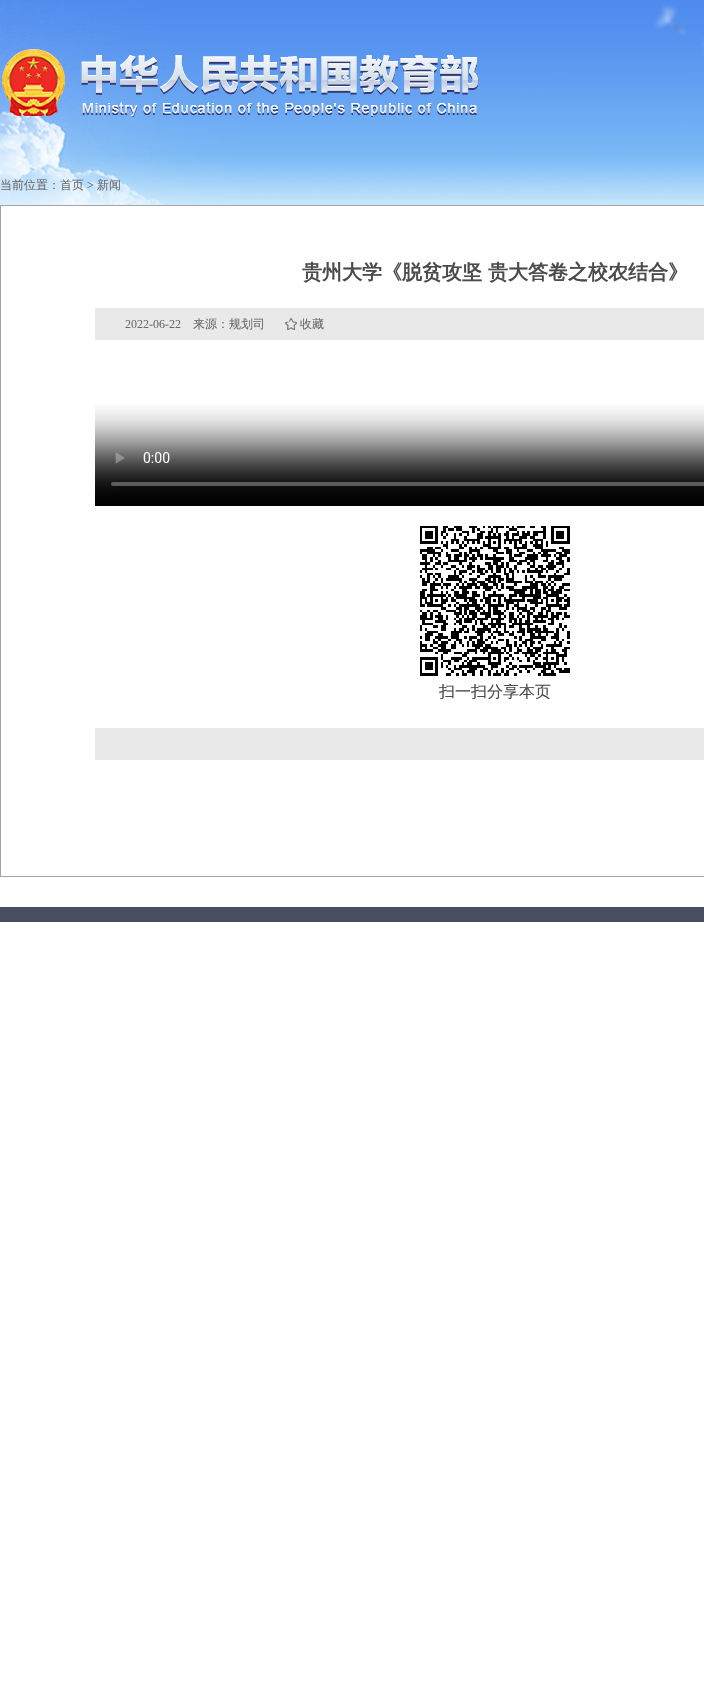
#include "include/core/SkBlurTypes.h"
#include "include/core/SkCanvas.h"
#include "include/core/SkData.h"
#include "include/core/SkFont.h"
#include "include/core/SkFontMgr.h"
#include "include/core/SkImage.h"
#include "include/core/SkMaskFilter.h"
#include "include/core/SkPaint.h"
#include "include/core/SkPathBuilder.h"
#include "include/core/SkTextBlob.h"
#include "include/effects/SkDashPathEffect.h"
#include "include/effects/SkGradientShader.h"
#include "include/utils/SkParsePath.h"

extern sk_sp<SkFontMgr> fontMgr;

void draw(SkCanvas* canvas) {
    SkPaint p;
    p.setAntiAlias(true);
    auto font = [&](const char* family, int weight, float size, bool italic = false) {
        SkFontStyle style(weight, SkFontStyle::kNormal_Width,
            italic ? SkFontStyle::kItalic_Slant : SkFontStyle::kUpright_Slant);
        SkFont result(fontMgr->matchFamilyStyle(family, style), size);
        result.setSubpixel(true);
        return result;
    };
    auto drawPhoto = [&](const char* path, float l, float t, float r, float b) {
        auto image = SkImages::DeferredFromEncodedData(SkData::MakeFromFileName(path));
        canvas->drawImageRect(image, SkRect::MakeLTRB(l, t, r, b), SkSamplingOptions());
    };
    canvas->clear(0xFFFFFFFF);
    drawPhoto("media/1.png", 0, 0, 704, 205);
    drawPhoto("media/2.png", 2, 49, 478, 117);
    drawPhoto("media/3.png", 2, 49, 478, 117);
    auto font1 = font("WenQuanYi Zen Hei", 500, 12);
    p.setColor(0xFF6B6B6B);
    canvas->drawString("当前位置：首页", 0, 189, font1, p);
    auto font2 = font("Liberation Serif", 400, 12);
    canvas->drawString(">", 87, 189, font2, p);
    canvas->drawString("新闻", 97, 189, font1, p);
    p.setStyle(SkPaint::kStroke_Style);
    p.setStrokeWidth(1);
    p.setColor(0xFFA4A4A4);
    canvas->drawRect(SkRect::MakeLTRB(0.5f, 205.5f, 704.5f, 876.5f), p);
    auto font3 = font("WenQuanYi Zen Hei", 700, 20);
    p.setStyle(SkPaint::kFill_Style);
    p.setColor(0xFF4B4B4B);
    canvas->drawString("贵州大学《脱贫攻坚 贵大答卷之校农结合》", 302, 279, font3, p);
    p.setColor(0xFFE9E9E9);
    canvas->drawRect(SkRect::MakeLTRB(95, 308, 704, 340), p);
    p.setColor(0xFF6B6B6B);
    canvas->drawString("2022-06-22", 125, 328, font2, p);
    canvas->drawString("来源：规划司", 193, 328, font1, p);
    drawPhoto("media/4.png", 285, 318, 297, 330);
    canvas->drawString("收藏", 300, 328, font1, p);
    drawPhoto("media/5.png", 95, 405, 704, 506);
    drawPhoto("media/6.png", 420, 526, 570, 676);
    auto font4 = font("WenQuanYi Zen Hei", 500, 16);
    p.setColor(0xFF4B4B4B);
    canvas->drawString("扫一扫分享本页", 439, 697, font4, p);
    p.setColor(0xFFE9E9E9);
    canvas->drawRect(SkRect::MakeLTRB(95, 728, 704, 760), p);
    p.setColor(0xFF474E62);
    canvas->drawRect(SkRect::MakeLTRB(0, 907, 704, 922), p);
}
